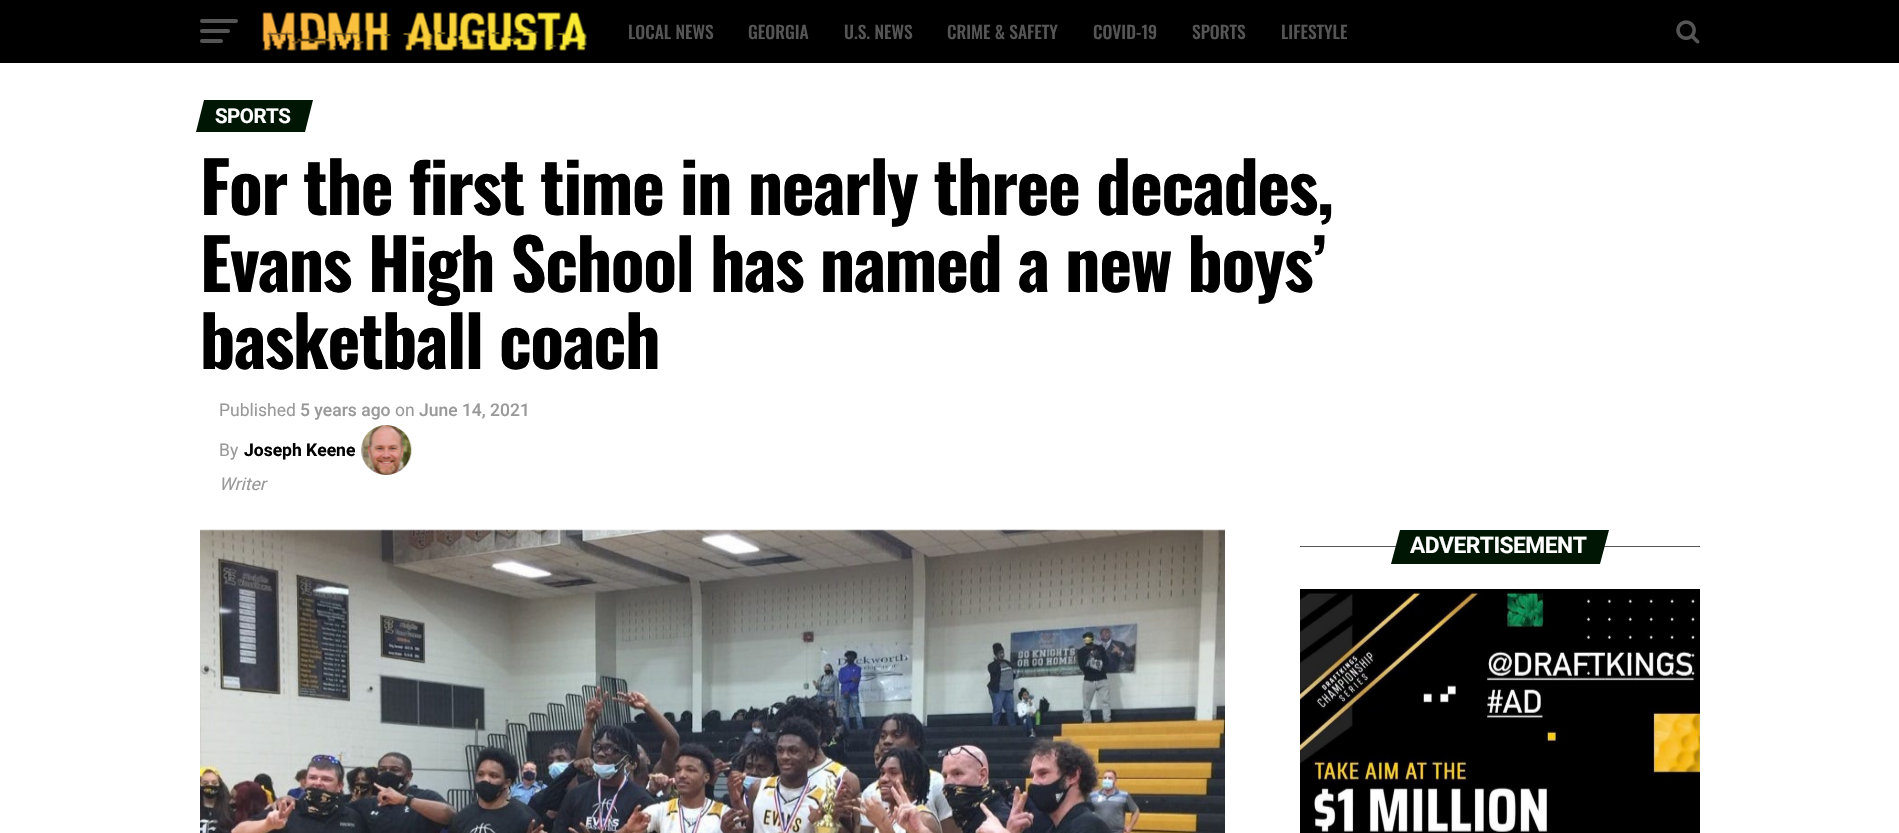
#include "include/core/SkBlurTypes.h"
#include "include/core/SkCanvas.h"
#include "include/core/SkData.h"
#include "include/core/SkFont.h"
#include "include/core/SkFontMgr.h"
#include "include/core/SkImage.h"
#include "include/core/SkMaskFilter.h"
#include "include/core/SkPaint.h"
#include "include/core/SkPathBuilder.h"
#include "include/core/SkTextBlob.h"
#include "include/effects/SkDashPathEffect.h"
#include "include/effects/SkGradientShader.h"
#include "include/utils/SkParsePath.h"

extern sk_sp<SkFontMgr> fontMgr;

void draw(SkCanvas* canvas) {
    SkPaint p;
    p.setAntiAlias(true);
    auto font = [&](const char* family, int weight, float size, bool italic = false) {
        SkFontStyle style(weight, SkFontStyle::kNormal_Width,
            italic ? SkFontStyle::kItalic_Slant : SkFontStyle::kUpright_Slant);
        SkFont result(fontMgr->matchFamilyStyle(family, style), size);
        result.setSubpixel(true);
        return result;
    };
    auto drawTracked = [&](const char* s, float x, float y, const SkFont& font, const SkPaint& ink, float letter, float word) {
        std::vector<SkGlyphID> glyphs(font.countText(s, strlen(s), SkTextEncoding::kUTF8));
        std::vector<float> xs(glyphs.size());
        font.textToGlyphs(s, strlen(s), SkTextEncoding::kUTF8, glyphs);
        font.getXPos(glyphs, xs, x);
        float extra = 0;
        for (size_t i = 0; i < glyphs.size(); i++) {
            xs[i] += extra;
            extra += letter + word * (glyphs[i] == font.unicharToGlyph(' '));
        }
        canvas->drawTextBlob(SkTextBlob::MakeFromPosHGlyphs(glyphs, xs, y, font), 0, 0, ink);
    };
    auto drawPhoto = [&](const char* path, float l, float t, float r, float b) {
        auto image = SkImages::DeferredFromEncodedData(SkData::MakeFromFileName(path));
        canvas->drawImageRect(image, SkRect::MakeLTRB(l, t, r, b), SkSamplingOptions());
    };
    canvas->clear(0xFFFFFFFF);
    p.setColor(0xFF000000);
    canvas->drawRect(SkRect::MakeLTRB(0, 0, 1899, 63), p);
    p.setColor(0xFF555555);
    canvas->drawRoundRect(SkRect::MakeLTRB(200, 19, 238, 23), 2, 2, p);
    canvas->drawRoundRect(SkRect::MakeLTRB(200, 29, 230, 33), 2, 2, p);
    canvas->drawRoundRect(SkRect::MakeLTRB(200, 39, 223, 43), 2, 2, p);
    drawPhoto("media/1.png", 262, 12, 587, 51);
    auto font1 = font("Oswald", 500, 17.5f);
    {
        const struct { const char* s; float x, y; } items[] = {
            {"LOCAL NEWS", 628, 39},
            {"GEORGIA", 748, 39},
            {"U.S. NEWS", 844, 39},
            {"CRIME & SAFETY", 947, 39},
            {"COVID-19", 1093, 39},
            {"SPORTS", 1192, 39},
            {"LIFESTYLE", 1281, 39},
        };
        for (auto [s, x, y] : items) {
            canvas->drawString(s, x, y, font1, p);
        }
    }
    drawPhoto("media/2.png", 1676, 20, 1700, 44);
    p.setColor(0xFF001604);
    canvas->drawPath(SkPathBuilder().moveTo(204, 100).lineTo(313, 100).lineTo(305, 132).lineTo(196, 132).close().detach(), p);
    auto font2 = font("Roboto", 700, 20.5f);
    p.setColor(0xFFFFFFFF);
    drawTracked("SPORTS", 215, 123, font2, p, -0.5f, 0);
    auto font3 = font("Oswald", 700, 70);
    p.setColor(0xFF000000);
    {
        const struct { const char* s; float x, y; } items[] = {
            {"For the first time in nearly three decades,", 200, 215},
            {"Evans High School has named a new boys’", 200, 292},
            {"basketball coach", 200, 369},
        };
        for (auto [s, x, y] : items) {
            drawTracked(s, x, y, font3, p, -1.4f, 0);
        }
    }
    auto font4 = font("Roboto", 400, 17.5f);
    p.setColor(0xFF999999);
    canvas->drawString("Published", 219, 416, font4, p);
    auto font5 = font("Roboto", 500, 17.5f);
    canvas->drawString("5 years ago", 300, 416, font5, p);
    canvas->drawString("on", 395, 416, font4, p);
    canvas->drawString("June 14, 2021", 419, 416, font5, p);
    canvas->drawString("By", 219, 456, font4, p);
    auto font6 = font("Roboto", 700, 17.5f);
    p.setColor(0xFF000000);
    canvas->drawString("Joseph Keene", 244, 456, font6, p);
    drawPhoto("media/3.png", 361, 425, 412, 475);
    auto font7 = font("Roboto", 400, 17.5f, true);
    p.setColor(0xFF999999);
    canvas->drawString("Writer", 219, 490, font7, p);
    drawPhoto("media/4.png", 200, 529, 1225, 833);
    p.setColor(0xFF555555);
    canvas->drawRect(SkRect::MakeLTRB(1300, 546, 1700, 547), p);
    p.setColor(0xFF001604);
    canvas->drawPath(SkPathBuilder().moveTo(1400, 530).lineTo(1609, 530).lineTo(1600, 564).lineTo(1391, 564).close().detach(), p);
    auto font8 = font("Roboto", 700, 22.75f);
    p.setColor(0xFFFFFFFF);
    drawTracked("ADVERTISEMENT", 1410, 553, font8, p, -0.5f, 0);
    drawPhoto("media/5.png", 1300, 589, 1700, 833);
}
